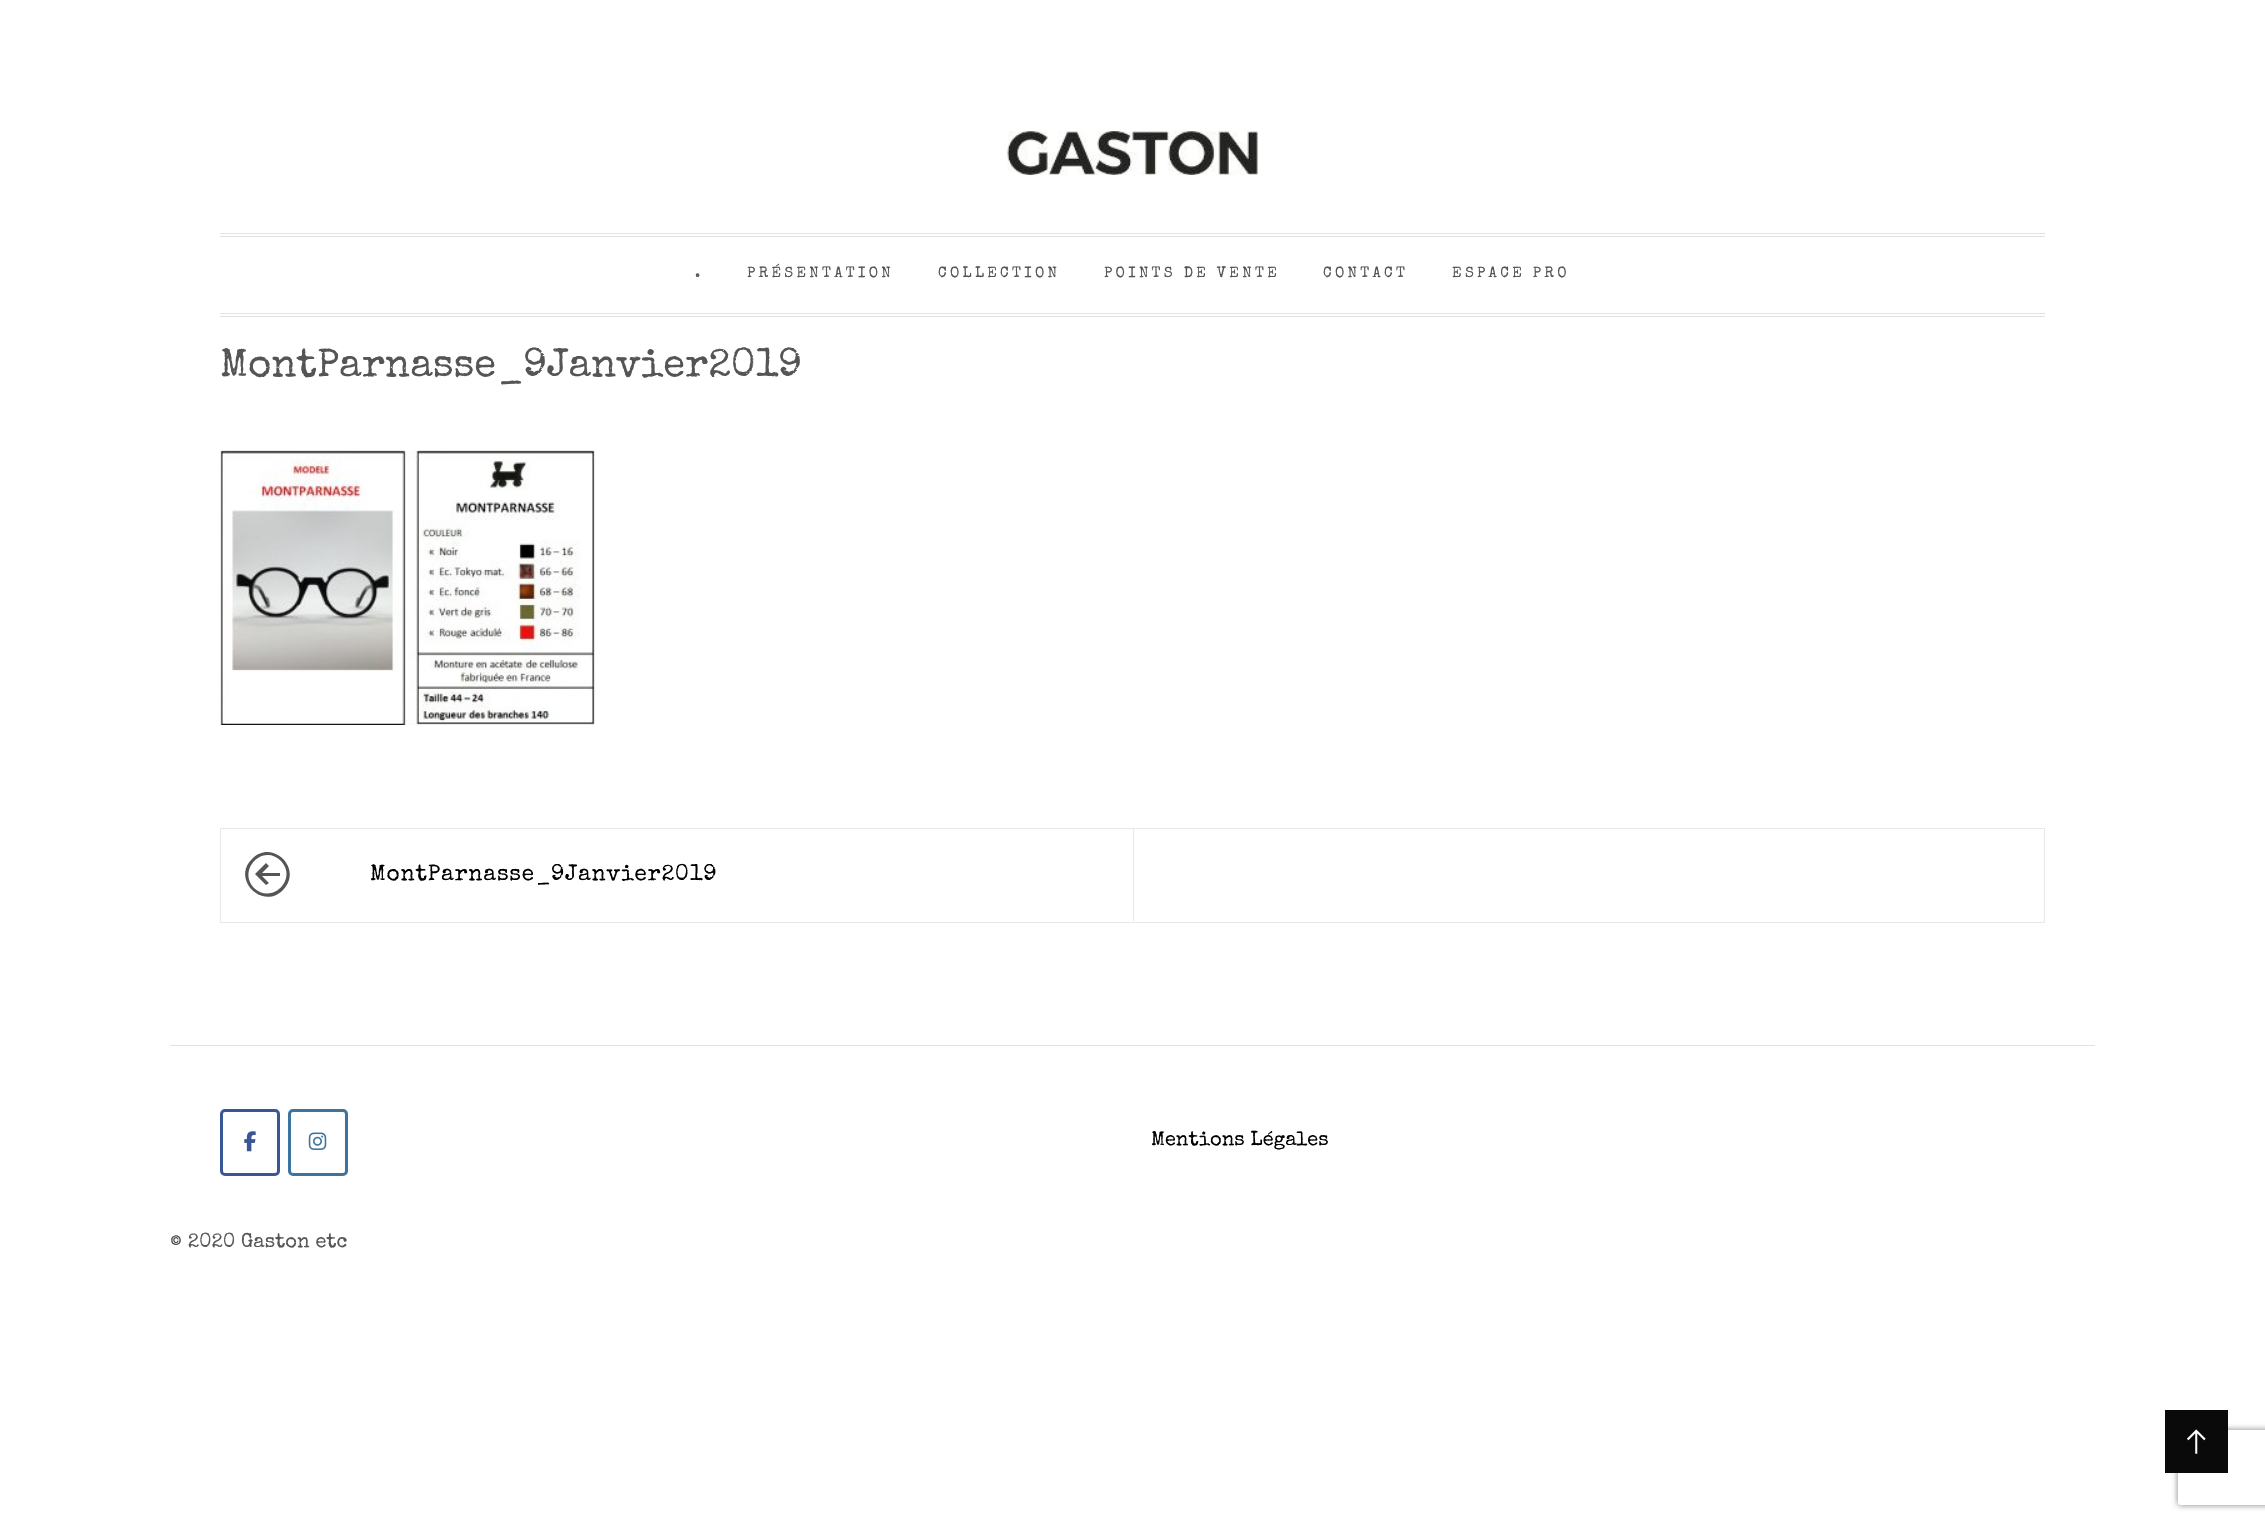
#include "include/core/SkBlurTypes.h"
#include "include/core/SkCanvas.h"
#include "include/core/SkData.h"
#include "include/core/SkFont.h"
#include "include/core/SkFontMgr.h"
#include "include/core/SkImage.h"
#include "include/core/SkMaskFilter.h"
#include "include/core/SkPaint.h"
#include "include/core/SkPathBuilder.h"
#include "include/core/SkTextBlob.h"
#include "include/effects/SkDashPathEffect.h"
#include "include/effects/SkGradientShader.h"
#include "include/utils/SkParsePath.h"

extern sk_sp<SkFontMgr> fontMgr;

void draw(SkCanvas* canvas) {
    SkPaint p;
    p.setAntiAlias(true);
    auto font = [&](const char* family, int weight, float size, bool italic = false) {
        SkFontStyle style(weight, SkFontStyle::kNormal_Width,
            italic ? SkFontStyle::kItalic_Slant : SkFontStyle::kUpright_Slant);
        SkFont result(fontMgr->matchFamilyStyle(family, style), size);
        result.setSubpixel(true);
        return result;
    };
    auto drawTracked = [&](const char* s, float x, float y, const SkFont& font, const SkPaint& ink, float letter, float word) {
        std::vector<SkGlyphID> glyphs(font.countText(s, strlen(s), SkTextEncoding::kUTF8));
        std::vector<float> xs(glyphs.size());
        font.textToGlyphs(s, strlen(s), SkTextEncoding::kUTF8, glyphs);
        font.getXPos(glyphs, xs, x);
        float extra = 0;
        for (size_t i = 0; i < glyphs.size(); i++) {
            xs[i] += extra;
            extra += letter + word * (glyphs[i] == font.unicharToGlyph(' '));
        }
        canvas->drawTextBlob(SkTextBlob::MakeFromPosHGlyphs(glyphs, xs, y, font), 0, 0, ink);
    };
    auto drawPhoto = [&](const char* path, float l, float t, float r, float b) {
        auto image = SkImages::DeferredFromEncodedData(SkData::MakeFromFileName(path));
        canvas->drawImageRect(image, SkRect::MakeLTRB(l, t, r, b), SkSamplingOptions());
    };
    canvas->clear(0xFFFFFFFF);
    drawPhoto("media/1.png", 1007, 131, 1258, 175);
    {
        const struct { float l, t, r, b; SkColor color; } items[] = {
            {220, 233, 2045, 234, 0xFFE2E2E2},
            {220, 236, 2045, 237, 0xFFE2E2E2},
            {220, 313, 2045, 314, 0xFFE2E2E2},
            {220, 316, 2045, 317, 0xFFE2E2E2},
        };
        for (auto [l, t, r, b, color] : items) {
            p.setColor(color);
            canvas->drawRect(SkRect::MakeLTRB(l, t, r, b), p);
        }
    }
    auto font1 = font("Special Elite", 400, 15);
    p.setColor(0xFF555555);
    {
        const struct { const char* s; float x, y; } items[] = {
            {".", 695, 277},
            {"PRÉSENTATION", 747, 277},
            {"COLLECTION", 938, 277},
            {"POINTS DE VENTE", 1104, 277},
            {"CONTACT", 1323, 277},
            {"ESPACE PRO", 1452, 277},
        };
        for (auto [s, x, y] : items) {
            drawTracked(s, x, y, font1, p, 3.3f, 0);
        }
    }
    auto font2 = font("Special Elite", 400, 40);
    canvas->drawString("MontParnasse_9Janvier2019", 220, 376, font2, p);
    drawPhoto("media/2.png", 220, 450, 595, 725);
    p.setStyle(SkPaint::kStroke_Style);
    p.setStrokeWidth(1);
    p.setColor(0xFFE8E8E8);
    canvas->drawRect(SkRect::MakeLTRB(220.5f, 828.5f, 2044.5f, 922.5f), p);
    p.setStyle(SkPaint::kFill_Style);
    p.setColor(0xFF555555);
    canvas->drawPath(SkPathBuilder().moveTo(252, 859).cubicTo(272, 838, 304, 869, 283, 890).cubicTo(263, 911, 231, 879, 252, 859).close().moveTo(281, 861).cubicTo(263, 843, 237, 870, 254, 888).cubicTo(272, 905, 298, 879, 281, 861).close().moveTo(266, 863).lineTo(269, 866).lineTo(262, 873).lineTo(280, 873).lineTo(280, 876).lineTo(262, 876).lineTo(269, 883).lineTo(266, 885).lineTo(255, 874).close().detach(), p);
    auto font3 = font("Special Elite", 400, 22.5f);
    p.setColor(0xFF000000);
    drawTracked("MontParnasse_9Janvier2019", 370, 880, font3, p, 0.8f, 0);
    p.setColor(0xFFE8E8E8);
    canvas->drawRect(SkRect::MakeLTRB(1133, 829, 1134, 921), p);
    p.setColor(0xFFE2E2E2);
    canvas->drawRect(SkRect::MakeLTRB(170, 1045, 2095, 1046), p);
    p.setStyle(SkPaint::kStroke_Style);
    p.setStrokeWidth(3);
    p.setColor(0xFF3A5795);
    canvas->drawRoundRect(SkRect::MakeLTRB(221.5f, 1110.5f, 278.5f, 1174.5f), 3.5f, 3.5f, p);
    drawPhoto("media/3.png", 244, 1131, 256, 1152);
    p.setColor(0xFF3D739C);
    canvas->drawRoundRect(SkRect::MakeLTRB(289.5f, 1110.5f, 346.5f, 1174.5f), 3.5f, 3.5f, p);
    drawPhoto("media/4.png", 308, 1132, 327, 1150);
    auto font4 = font("Special Elite", 400, 20);
    p.setStyle(SkPaint::kFill_Style);
    p.setColor(0xFF000000);
    canvas->drawString("Mentions Légales", 1151, 1145, font4, p);
    p.setColor(0xFF555555);
    canvas->drawString("© 2020 Gaston etc", 170, 1247, font4, p);
    canvas->save();
    canvas->clipPath(SkPathBuilder(SkPathFillType::kEvenOdd).moveTo(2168, 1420).lineTo(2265, 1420).lineTo(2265, 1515).lineTo(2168, 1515).close().moveTo(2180.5f, 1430).lineTo(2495.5f, 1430).cubicTo(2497, 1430, 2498, 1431, 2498, 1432.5f).lineTo(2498, 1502.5f).cubicTo(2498, 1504, 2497, 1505, 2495.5f, 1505).lineTo(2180.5f, 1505).cubicTo(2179, 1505, 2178, 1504, 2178, 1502.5f).lineTo(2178, 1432.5f).cubicTo(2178, 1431, 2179, 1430, 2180.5f, 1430).close().detach(), true);
    p.setColor(0xFF808080);
    p.setMaskFilter(SkMaskFilter::MakeBlur(kNormal_SkBlurStyle, 3));
    canvas->drawRoundRect(SkRect::MakeLTRB(2178, 1430, 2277, 1505), 2.5f, 2.5f, p);
    p.setMaskFilter(nullptr);
    canvas->restore();
    p.setColor(0xFF0A0A0A);
    canvas->drawRect(SkRect::MakeLTRB(2165, 1410, 2228, 1473), p);
    drawPhoto("media/5.png", 2187, 1429, 2206, 1454);
}
